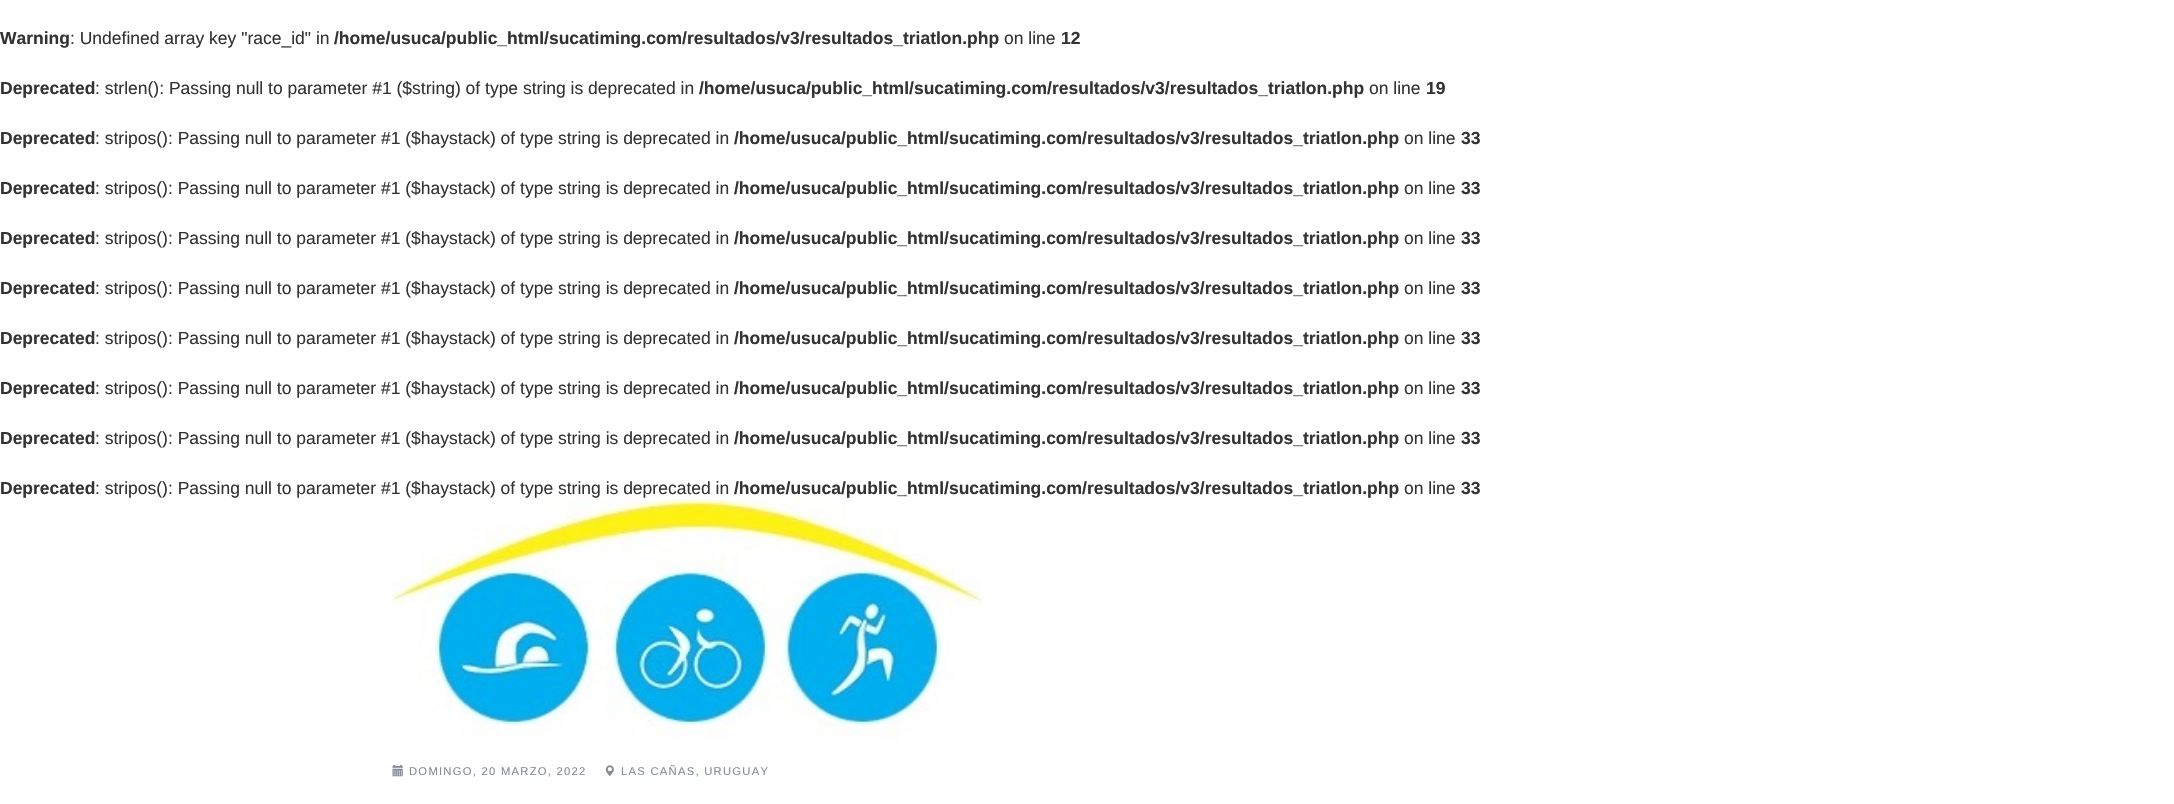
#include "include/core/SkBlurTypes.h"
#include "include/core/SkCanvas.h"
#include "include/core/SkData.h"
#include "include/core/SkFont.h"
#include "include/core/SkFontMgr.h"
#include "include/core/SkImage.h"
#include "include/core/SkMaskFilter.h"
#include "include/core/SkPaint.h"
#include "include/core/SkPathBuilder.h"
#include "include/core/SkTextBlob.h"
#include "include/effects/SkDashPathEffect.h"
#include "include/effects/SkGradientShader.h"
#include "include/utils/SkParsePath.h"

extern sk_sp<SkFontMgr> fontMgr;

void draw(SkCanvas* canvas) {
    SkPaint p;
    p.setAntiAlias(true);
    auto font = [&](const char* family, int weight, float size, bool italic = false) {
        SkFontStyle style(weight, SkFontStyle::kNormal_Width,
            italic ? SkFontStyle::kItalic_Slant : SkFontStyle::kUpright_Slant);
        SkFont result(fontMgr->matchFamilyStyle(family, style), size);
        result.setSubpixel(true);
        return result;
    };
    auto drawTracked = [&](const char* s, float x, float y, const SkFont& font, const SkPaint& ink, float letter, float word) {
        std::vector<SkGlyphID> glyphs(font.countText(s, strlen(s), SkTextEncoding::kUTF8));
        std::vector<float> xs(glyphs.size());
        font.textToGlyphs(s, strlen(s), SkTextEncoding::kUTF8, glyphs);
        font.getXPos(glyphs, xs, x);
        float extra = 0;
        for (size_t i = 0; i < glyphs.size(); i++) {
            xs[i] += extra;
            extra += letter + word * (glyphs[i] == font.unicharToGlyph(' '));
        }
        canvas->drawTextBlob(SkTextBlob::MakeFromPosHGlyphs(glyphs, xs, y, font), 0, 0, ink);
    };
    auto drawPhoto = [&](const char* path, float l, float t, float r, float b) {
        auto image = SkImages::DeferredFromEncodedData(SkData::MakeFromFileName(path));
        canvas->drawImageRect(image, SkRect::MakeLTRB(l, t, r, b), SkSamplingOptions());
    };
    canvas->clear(0xFFFFFFFF);
    auto font1 = font("Liberation Sans", 700, 17.5f);
    p.setColor(0xFF333333);
    canvas->drawString("Warning", 0, 44, font1, p);
    auto font2 = font("Liberation Sans", 400, 17.5f);
    canvas->drawString(": Undefined array key \"race_id\" in", 70, 44, font2, p);
    canvas->drawString("/home/usuca/public_html/sucatiming.com/resultados/v3/resultados_triatlon.php", 334, 44, font1, p);
    canvas->drawString("on line", 1004, 44, font2, p);
    canvas->drawString("12", 1061, 44, font1, p);
    canvas->drawString("Deprecated", 0, 94, font1, p);
    canvas->drawString(": strlen(): Passing null to parameter #1 ($string) of type string is deprecated in", 95, 94, font2, p);
    canvas->drawString("/home/usuca/public_html/sucatiming.com/resultados/v3/resultados_triatlon.php", 699, 94, font1, p);
    canvas->drawString("on line", 1369, 94, font2, p);
    canvas->drawString("19", 1426, 94, font1, p);
    canvas->drawString("Deprecated", 0, 144, font1, p);
    canvas->drawString(": stripos(): Passing null to parameter #1 ($haystack) of type string is deprecated in", 95, 144, font2, p);
    canvas->drawString("/home/usuca/public_html/sucatiming.com/resultados/v3/resultados_triatlon.php", 734, 144, font1, p);
    canvas->drawString("on line", 1404, 144, font2, p);
    canvas->drawString("33", 1461, 144, font1, p);
    canvas->drawString("Deprecated", 0, 194, font1, p);
    canvas->drawString(": stripos(): Passing null to parameter #1 ($haystack) of type string is deprecated in", 95, 194, font2, p);
    canvas->drawString("/home/usuca/public_html/sucatiming.com/resultados/v3/resultados_triatlon.php", 734, 194, font1, p);
    canvas->drawString("on line", 1404, 194, font2, p);
    canvas->drawString("33", 1461, 194, font1, p);
    canvas->drawString("Deprecated", 0, 244, font1, p);
    canvas->drawString(": stripos(): Passing null to parameter #1 ($haystack) of type string is deprecated in", 95, 244, font2, p);
    canvas->drawString("/home/usuca/public_html/sucatiming.com/resultados/v3/resultados_triatlon.php", 734, 244, font1, p);
    canvas->drawString("on line", 1404, 244, font2, p);
    canvas->drawString("33", 1461, 244, font1, p);
    canvas->drawString("Deprecated", 0, 294, font1, p);
    canvas->drawString(": stripos(): Passing null to parameter #1 ($haystack) of type string is deprecated in", 95, 294, font2, p);
    canvas->drawString("/home/usuca/public_html/sucatiming.com/resultados/v3/resultados_triatlon.php", 734, 294, font1, p);
    canvas->drawString("on line", 1404, 294, font2, p);
    canvas->drawString("33", 1461, 294, font1, p);
    canvas->drawString("Deprecated", 0, 344, font1, p);
    canvas->drawString(": stripos(): Passing null to parameter #1 ($haystack) of type string is deprecated in", 95, 344, font2, p);
    canvas->drawString("/home/usuca/public_html/sucatiming.com/resultados/v3/resultados_triatlon.php", 734, 344, font1, p);
    canvas->drawString("on line", 1404, 344, font2, p);
    canvas->drawString("33", 1461, 344, font1, p);
    canvas->drawString("Deprecated", 0, 394, font1, p);
    canvas->drawString(": stripos(): Passing null to parameter #1 ($haystack) of type string is deprecated in", 95, 394, font2, p);
    canvas->drawString("/home/usuca/public_html/sucatiming.com/resultados/v3/resultados_triatlon.php", 734, 394, font1, p);
    canvas->drawString("on line", 1404, 394, font2, p);
    canvas->drawString("33", 1461, 394, font1, p);
    canvas->drawString("Deprecated", 0, 444, font1, p);
    canvas->drawString(": stripos(): Passing null to parameter #1 ($haystack) of type string is deprecated in", 95, 444, font2, p);
    canvas->drawString("/home/usuca/public_html/sucatiming.com/resultados/v3/resultados_triatlon.php", 734, 444, font1, p);
    canvas->drawString("on line", 1404, 444, font2, p);
    canvas->drawString("33", 1461, 444, font1, p);
    canvas->drawString("Deprecated", 0, 494, font1, p);
    canvas->drawString(": stripos(): Passing null to parameter #1 ($haystack) of type string is deprecated in", 95, 494, font2, p);
    canvas->drawString("/home/usuca/public_html/sucatiming.com/resultados/v3/resultados_triatlon.php", 734, 494, font1, p);
    canvas->drawString("on line", 1404, 494, font2, p);
    canvas->drawString("33", 1461, 494, font1, p);
    drawPhoto("media/1.png", 392, 500, 984, 740);
    drawPhoto("media/2.png", 392, 765, 403, 777);
    auto font3 = font("Liberation Sans", 400, 11.25f);
    p.setColor(0xFF828B99);
    drawTracked("DOMINGO, 20 MARZO, 2022", 409, 775, font3, p, 1.25f, 0);
    drawPhoto("media/3.png", 605, 765, 614, 777);
    drawTracked("LAS CAÑAS, URUGUAY", 621, 775, font3, p, 1.25f, 0);
}
